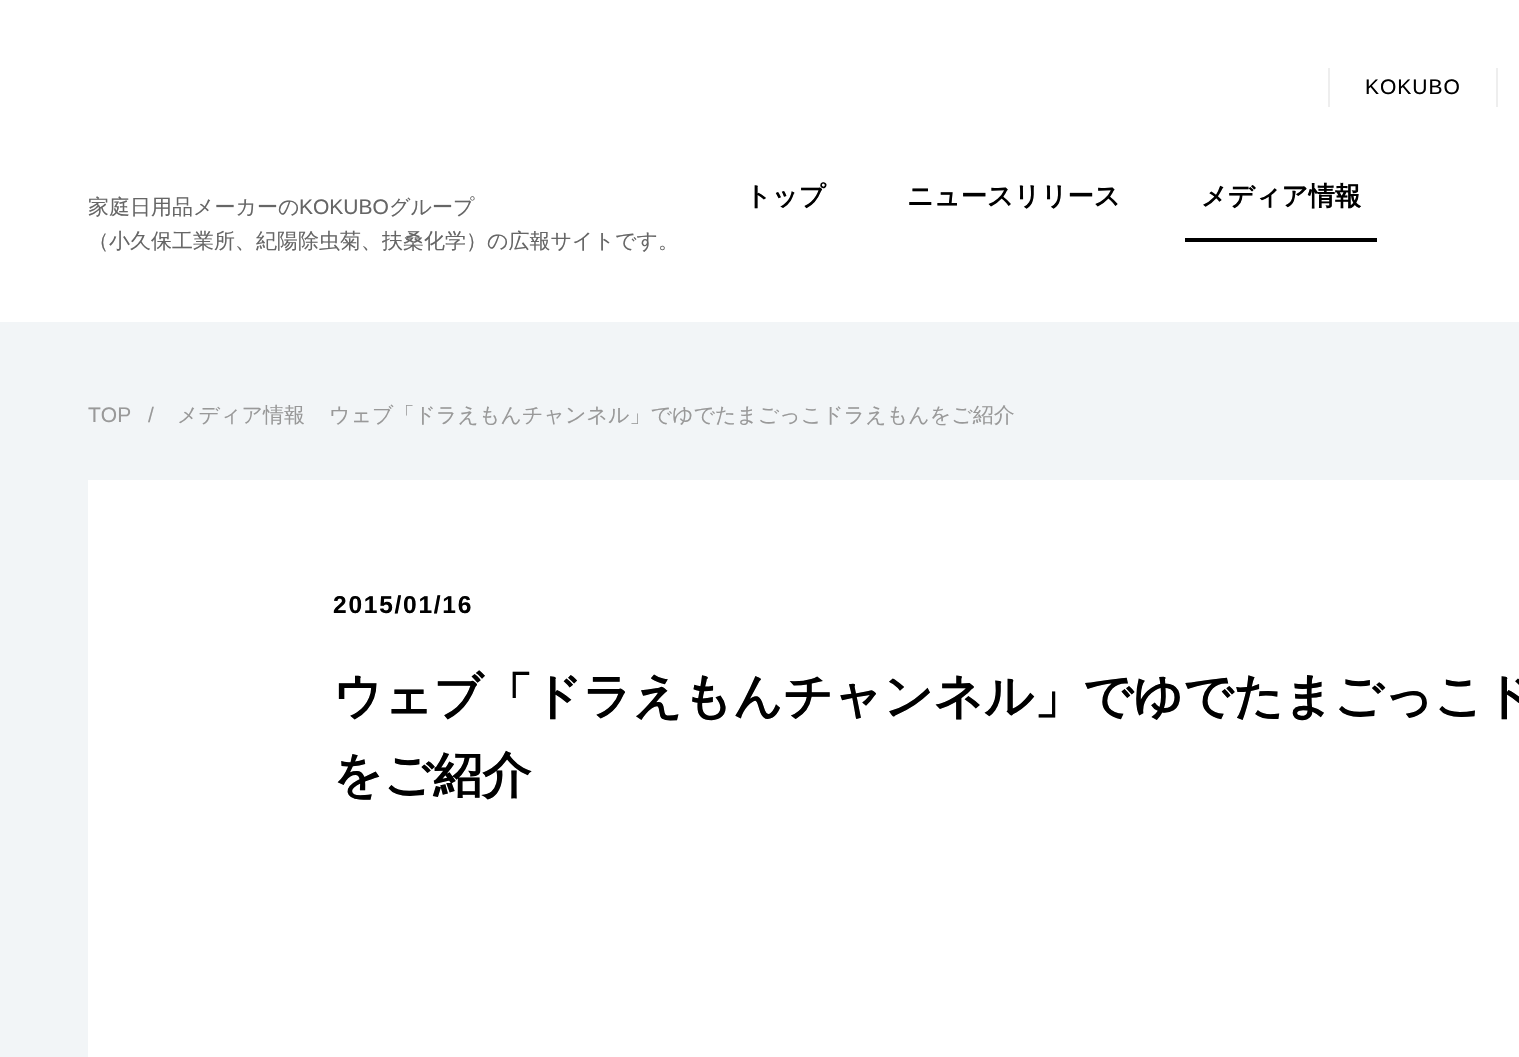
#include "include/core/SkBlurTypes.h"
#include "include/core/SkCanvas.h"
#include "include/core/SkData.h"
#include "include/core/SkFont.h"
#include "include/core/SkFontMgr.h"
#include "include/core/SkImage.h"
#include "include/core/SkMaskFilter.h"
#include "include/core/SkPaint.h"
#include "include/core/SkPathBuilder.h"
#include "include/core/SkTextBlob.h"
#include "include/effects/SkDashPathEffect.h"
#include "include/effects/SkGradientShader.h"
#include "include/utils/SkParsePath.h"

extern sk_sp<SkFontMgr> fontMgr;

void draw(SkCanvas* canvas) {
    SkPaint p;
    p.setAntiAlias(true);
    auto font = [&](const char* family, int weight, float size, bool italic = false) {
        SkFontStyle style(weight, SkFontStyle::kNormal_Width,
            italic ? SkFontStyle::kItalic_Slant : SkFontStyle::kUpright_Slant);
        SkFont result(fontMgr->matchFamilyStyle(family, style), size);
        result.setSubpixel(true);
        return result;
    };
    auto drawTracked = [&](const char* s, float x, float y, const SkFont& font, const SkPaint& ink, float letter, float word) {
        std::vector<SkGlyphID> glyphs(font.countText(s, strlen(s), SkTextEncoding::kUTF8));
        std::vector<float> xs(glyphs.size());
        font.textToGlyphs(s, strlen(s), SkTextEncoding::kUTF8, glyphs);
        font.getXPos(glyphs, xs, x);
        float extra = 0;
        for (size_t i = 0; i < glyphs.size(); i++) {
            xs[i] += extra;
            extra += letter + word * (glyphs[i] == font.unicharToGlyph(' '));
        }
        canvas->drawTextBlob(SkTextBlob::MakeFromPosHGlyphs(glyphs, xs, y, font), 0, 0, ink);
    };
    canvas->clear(0xFFF2F5F7);
    p.setColor(0xFFFFFFFF);
    canvas->drawRect(SkRect::MakeLTRB(0, 0, 1519, 322), p);
    auto font1 = font("Liberation Sans", 400, 21);
    p.setColor(0xFF000000);
    drawTracked("KOKUBO", 1365, 94, font1, p, 1, 0);
    p.setColor(0xFFEEEEEE);
    canvas->drawRect(SkRect::MakeLTRB(1496, 68, 1498, 107), p);
    canvas->drawRect(SkRect::MakeLTRB(1328, 68, 1330, 107), p);
    auto font2 = font("WenQuanYi Zen Hei", 700, 26.25f);
    p.setColor(0xFF000000);
    {
        const struct { const char* s; float x, y; } items[] = {
            {"トップ", 745, 205},
            {"ニュースリリース", 907, 205},
            {"メディア情報", 1201, 205},
        };
        for (auto [s, x, y] : items) {
            canvas->drawString(s, x, y, font2, p);
        }
    }
    canvas->drawRect(SkRect::MakeLTRB(1185, 238, 1377, 242), p);
    auto font3 = font("WenQuanYi Zen Hei", 500, 21);
    p.setColor(0xFF666666);
    canvas->drawString("家庭日用品メーカーの", 88, 214, font3, p);
    canvas->drawString("KOKUBO", 299, 214, font1, p);
    canvas->drawString("グループ", 389, 214, font3, p);
    canvas->drawString("（小久保工業所、紀陽除虫菊、扶桑化学）の広報サイトです。", 88, 248, font3, p);
    p.setColor(0xFF999999);
    canvas->drawString("TOP", 88, 422, font1, p);
    canvas->drawString("/", 148, 422, font1, p);
    canvas->drawString("メディア情報", 177, 422, font3, p);
    canvas->drawString("ウェブ「ドラえもんチャンネル」でゆでたまごっこドラえもんをご紹介", 329, 422, font3, p);
    p.setColor(0xFFFFFFFF);
    canvas->drawRect(SkRect::MakeLTRB(88, 480, 1519, 1057), p);
    auto font4 = font("Liberation Sans", 700, 24.5f);
    p.setColor(0xFF000000);
    drawTracked("2015/01/16", 333, 613, font4, p, 1.75f, 0);
    auto font5 = font("WenQuanYi Zen Hei", 700, 49);
    canvas->drawString("ウェブ「ドラえもんチャンネル」でゆでたまごっこド", 333, 713, font5, p);
    canvas->drawString("をご紹介", 333, 792, font5, p);
}
